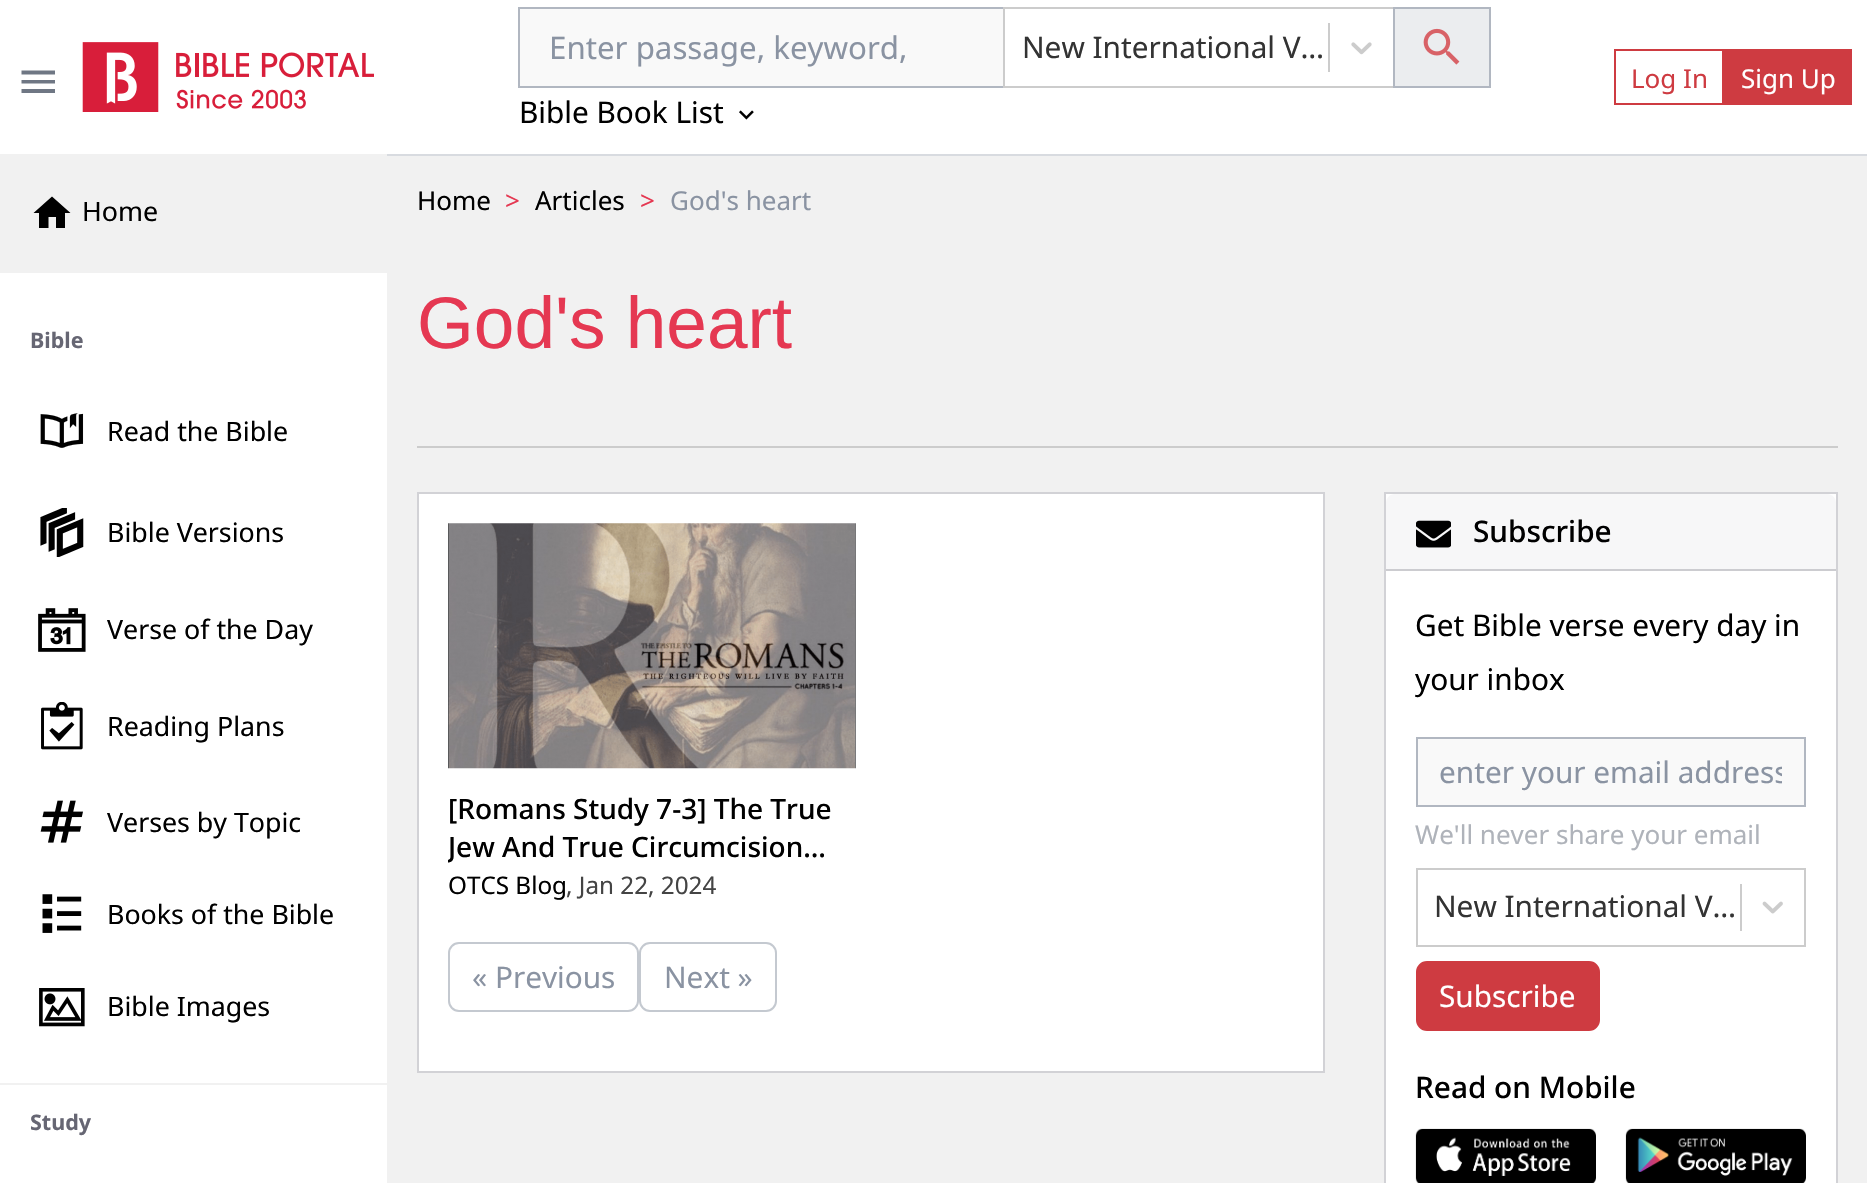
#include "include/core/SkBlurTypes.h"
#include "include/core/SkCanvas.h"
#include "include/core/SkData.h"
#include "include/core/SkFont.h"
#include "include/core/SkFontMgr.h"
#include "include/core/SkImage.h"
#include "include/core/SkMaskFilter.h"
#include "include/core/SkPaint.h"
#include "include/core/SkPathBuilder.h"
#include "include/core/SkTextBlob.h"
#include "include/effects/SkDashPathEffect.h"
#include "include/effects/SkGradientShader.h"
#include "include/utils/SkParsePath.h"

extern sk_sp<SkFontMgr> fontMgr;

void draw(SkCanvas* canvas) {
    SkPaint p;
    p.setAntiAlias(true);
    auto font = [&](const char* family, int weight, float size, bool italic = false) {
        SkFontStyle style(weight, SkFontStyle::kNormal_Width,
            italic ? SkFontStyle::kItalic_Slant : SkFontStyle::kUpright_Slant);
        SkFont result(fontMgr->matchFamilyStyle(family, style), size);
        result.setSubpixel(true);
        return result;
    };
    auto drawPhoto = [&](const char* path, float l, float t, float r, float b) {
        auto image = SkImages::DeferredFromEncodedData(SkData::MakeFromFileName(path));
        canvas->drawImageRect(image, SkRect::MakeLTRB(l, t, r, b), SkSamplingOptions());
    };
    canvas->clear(0xFFF1F1F1);
    p.setColor(0xFFFFFFFF);
    canvas->drawRect(SkRect::MakeLTRB(0, 0, 1867, 154), p);
    p.setColor(0xFFD8DBE0);
    canvas->drawRect(SkRect::MakeLTRB(387, 154, 1867, 156), p);
    p.setColor(0xFF6F7784);
    canvas->drawPath(SkPathBuilder().moveTo(21.5f, 93).lineTo(55, 93).lineTo(55, 89).lineTo(21.5f, 89).close().moveTo(21.5f, 83.5f).lineTo(55, 83.5f).lineTo(55, 80).lineTo(21.5f, 80).close().moveTo(21.5f, 70.5f).lineTo(21.5f, 74.5f).lineTo(55, 74.5f).lineTo(55, 70.5f).close().detach(), p);
    drawPhoto("media/1.png", 82, 42, 374, 112);
    p.setColor(0xFFF9F9F9);
    canvas->drawRect(SkRect::MakeLTRB(519, 8, 1004, 87), p);
    p.setStyle(SkPaint::kStroke_Style);
    p.setStrokeWidth(2);
    p.setColor(0xFFB1B7C1);
    canvas->drawRect(SkRect::MakeLTRB(519, 8, 1004, 87), p);
    auto font1 = font("Noto Sans", 400, 31.25f);
    p.setStyle(SkPaint::kFill_Style);
    p.setColor(0xFF8A93A2);
    canvas->drawString("Enter passage, keyword,", 549, 59, font1, p);
    p.setStyle(SkPaint::kStroke_Style);
    p.setColor(0xFFCCCCCC);
    canvas->drawRect(SkRect::MakeLTRB(1004, 8, 1394, 87), p);
    auto font2 = font("Noto Sans", 400, 29.75f);
    p.setStyle(SkPaint::kFill_Style);
    p.setColor(0xFF333333);
    canvas->drawString("New International V…", 1022, 58, font2, p);
    p.setColor(0xFFCCCCCC);
    canvas->drawRect(SkRect::MakeLTRB(1328, 23, 1330, 72), p);
    drawPhoto("media/2.png", 1351, 42, 1372, 55);
    p.setColor(0xFFEBEDEF);
    canvas->drawRect(SkRect::MakeLTRB(1394, 8, 1490, 87), p);
    p.setStyle(SkPaint::kStroke_Style);
    p.setColor(0xFFB1B7C1);
    canvas->drawRect(SkRect::MakeLTRB(1394, 8, 1490, 87), p);
    drawPhoto("media/3.png", 1423, 28, 1460, 65);
    p.setStyle(SkPaint::kFill_Style);
    p.setColor(0xFF000000);
    canvas->drawString("Bible Book List", 519, 123, font2, p);
    drawPhoto("media/4.png", 739, 110, 754, 120);
    p.setStyle(SkPaint::kStroke_Style);
    p.setColor(0xFFCE3B41);
    canvas->drawRect(SkRect::MakeLTRB(1615, 50, 1723, 104), p);
    auto font3 = font("Noto Sans", 400, 26);
    p.setStyle(SkPaint::kFill_Style);
    canvas->drawString("Log In", 1631, 88, font3, p);
    canvas->drawRect(SkRect::MakeLTRB(1724, 49, 1852, 105), p);
    p.setColor(0xFFFFFFFF);
    canvas->drawString("Sign Up", 1741, 88, font3, p);
    canvas->drawRect(SkRect::MakeLTRB(0, 273, 387, 1183), p);
    p.setColor(0xFF000000);
    canvas->drawPath(SkPathBuilder().moveTo(48.5f, 228).lineTo(48.5f, 217).lineTo(56, 217).lineTo(56, 228).lineTo(65, 228).lineTo(65, 213).lineTo(70.5f, 213).lineTo(52, 196.5f).lineTo(33.5f, 213).lineTo(39, 213).lineTo(39, 228).close().detach(), p);
    auto font4 = font("Noto Sans", 400, 26.75f);
    canvas->drawString("Home", 82, 221, font4, p);
    auto font5 = font("Noto Sans", 700, 21.5f);
    p.setColor(0xFF666673);
    canvas->drawString("Bible", 30, 348, font5, p);
    drawPhoto("media/5.png", 40, 413, 84, 448);
    p.setColor(0xFF000000);
    canvas->drawString("Read the Bible", 107, 441, font4, p);
    drawPhoto("media/6.png", 40, 508, 84, 557);
    canvas->drawString("Bible Versions", 107, 542, font4, p);
    drawPhoto("media/7.png", 38, 608, 86, 652);
    canvas->drawString("Verse of the Day", 107, 639, font4, p);
    drawPhoto("media/8.png", 41, 702, 83, 750);
    canvas->drawString("Reading Plans", 107, 736, font4, p);
    drawPhoto("media/9.png", 40, 800, 83, 843);
    canvas->drawString("Verses by Topic", 107, 832, font4, p);
    drawPhoto("media/10.png", 42, 894, 82, 933);
    canvas->drawString("Books of the Bible", 107, 924, font4, p);
    drawPhoto("media/11.png", 39, 988, 85, 1027);
    canvas->drawString("Bible Images", 107, 1016, font4, p);
    p.setColor(0xFFF1F1F1);
    canvas->drawRect(SkRect::MakeLTRB(0, 1083, 387, 1085), p);
    p.setColor(0xFF666673);
    canvas->drawString("Study", 30, 1130, font5, p);
    p.setColor(0xFF000000);
    canvas->drawString("Home", 417, 210, font3, p);
    p.setColor(0xFFE53852);
    canvas->drawString(">", 505, 210, font3, p);
    p.setColor(0xFF000000);
    canvas->drawString("Articles", 535, 210, font3, p);
    p.setColor(0xFFE53852);
    canvas->drawString(">", 640, 210, font3, p);
    p.setColor(0xFF8A93A2);
    canvas->drawString("God's heart", 670, 210, font3, p);
    p.setColor(0xFFCCCCCC);
    canvas->drawRect(SkRect::MakeLTRB(417, 446, 1838, 448), p);
    auto font6 = font("Liberation Sans", 400, 73);
    p.setColor(0xFFE53852);
    canvas->drawString("God's heart", 417, 348, font6, p);
    p.setColor(0xFFFFFFFF);
    canvas->drawRect(SkRect::MakeLTRB(418, 493, 1324, 1072), p);
    p.setStyle(SkPaint::kStroke_Style);
    p.setColor(0xFFD2D2D6);
    canvas->drawRect(SkRect::MakeLTRB(418, 493, 1324, 1072), p);
    drawPhoto("media/12.png", 448, 523, 856, 769);
    auto font7 = font("Noto Sans", 500, 28);
    p.setStyle(SkPaint::kFill_Style);
    p.setColor(0xFF000000);
    canvas->drawString("[Romans Study 7-3] The True", 448, 819, font7, p);
    canvas->save();
    canvas->clipRect(SkRect::MakeLTRB(448, 789, 856, 866));
    canvas->drawString("Jew And True Circumcision…", 448, 857, font7, p);
    canvas->restore();
    auto font8 = font("Noto Sans", 400, 24.25f);
    canvas->drawString("OTCS Blog", 448, 894, font8, p);
    p.setColor(0xFF444444);
    canvas->drawString(", Jan 22, 2024", 566, 894, font8, p);
    p.setStyle(SkPaint::kStroke_Style);
    p.setColor(0xFFC4C9D0);
    canvas->drawRoundRect(SkRect::MakeLTRB(449, 943, 638, 1011), 10, 10, p);
    p.setStyle(SkPaint::kFill_Style);
    p.setColor(0xFF8A93A2);
    canvas->drawString("« Previous", 472, 988, font2, p);
    p.setStyle(SkPaint::kStroke_Style);
    p.setColor(0xFFC4C9D0);
    canvas->drawRoundRect(SkRect::MakeLTRB(640, 943, 776, 1011), 10, 10, p);
    p.setStyle(SkPaint::kFill_Style);
    p.setColor(0xFF8A93A2);
    canvas->drawString("Next »", 664, 988, font2, p);
    p.setColor(0xFFFFFFFF);
    canvas->drawRect(SkRect::MakeLTRB(1385, 493, 1837, 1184), p);
    p.setStyle(SkPaint::kStroke_Style);
    p.setColor(0xFFD2D2D6);
    canvas->drawRect(SkRect::MakeLTRB(1385, 493, 1837, 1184), p);
    p.setStyle(SkPaint::kFill_Style);
    p.setColor(0xFFF7F7F8);
    canvas->drawPath(SkPathBuilder().moveTo(1395, 494).lineTo(1827, 494).cubicTo(1832, 494, 1836, 498, 1836, 503).lineTo(1836, 571).lineTo(1386, 571).lineTo(1386, 503).cubicTo(1386, 498, 1390, 494, 1395, 494).close().detach(), p);
    p.setColor(0xFFCCCCD0);
    canvas->drawRect(SkRect::MakeLTRB(1386, 569, 1836, 571), p);
    drawPhoto("media/13.png", 1416, 520, 1451, 548);
    auto font9 = font("Noto Sans", 500, 29.75f);
    p.setColor(0xFF000000);
    canvas->drawString("Subscribe", 1473, 542, font9, p);
    canvas->drawString("Get Bible verse every day in", 1415, 636, font2, p);
    canvas->drawString("your inbox", 1415, 690, font2, p);
    p.setColor(0xFFF9F9F9);
    canvas->drawRect(SkRect::MakeLTRB(1417, 738, 1805, 806), p);
    p.setStyle(SkPaint::kStroke_Style);
    p.setColor(0xFFB1B7C1);
    canvas->drawRect(SkRect::MakeLTRB(1417, 738, 1805, 806), p);
    canvas->save();
    canvas->clipRect(SkRect::MakeLTRB(1439, 751, 1782, 791));
    p.setStyle(SkPaint::kFill_Style);
    p.setColor(0xFF8A93A2);
    canvas->drawString("enter your email address", 1439, 783, font2, p);
    canvas->restore();
    p.setColor(0xFFAFB3BA);
    canvas->drawString("We'll never share your email", 1415, 844, font3, p);
    p.setStyle(SkPaint::kStroke_Style);
    p.setColor(0xFFCCCCCC);
    canvas->drawRect(SkRect::MakeLTRB(1417, 869, 1805, 946), p);
    p.setStyle(SkPaint::kFill_Style);
    p.setColor(0xFF333333);
    canvas->drawString("New International V…", 1434, 917, font2, p);
    p.setColor(0xFFCCCCCC);
    canvas->drawRect(SkRect::MakeLTRB(1740, 884, 1742, 931), p);
    drawPhoto("media/14.png", 1762, 901, 1783, 914);
    p.setColor(0xFFCE3B41);
    canvas->drawRoundRect(SkRect::MakeLTRB(1417, 962, 1599, 1030), 10, 10, p);
    p.setStyle(SkPaint::kStroke_Style);
    canvas->drawRoundRect(SkRect::MakeLTRB(1417, 962, 1599, 1030), 10, 10, p);
    p.setStyle(SkPaint::kFill_Style);
    p.setColor(0xFFFFFFFF);
    canvas->drawString("Subscribe", 1439, 1007, font2, p);
    p.setColor(0xFF000000);
    canvas->drawString("Read on Mobile", 1415, 1098, font9, p);
    drawPhoto("media/15.png", 1415, 1128, 1596, 1183);
    drawPhoto("media/16.png", 1625, 1128, 1806, 1183);
}
